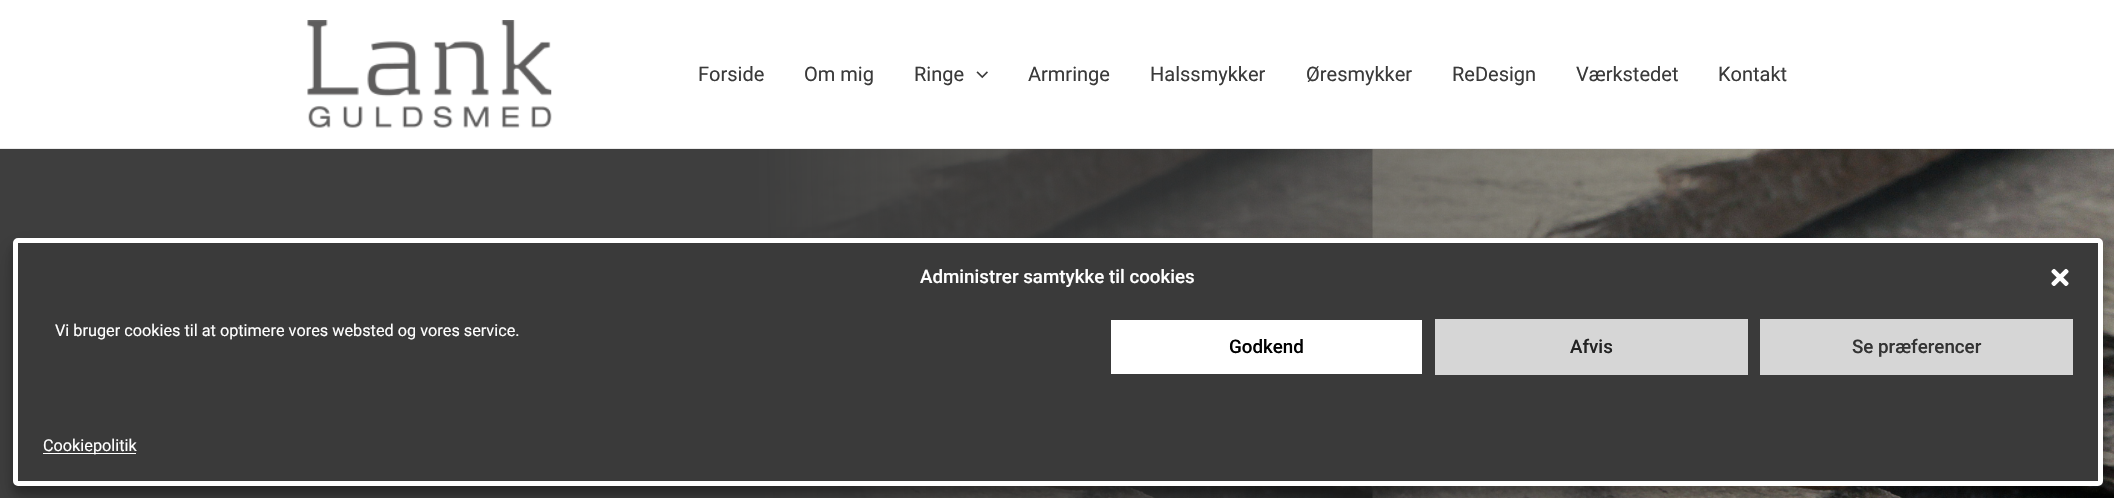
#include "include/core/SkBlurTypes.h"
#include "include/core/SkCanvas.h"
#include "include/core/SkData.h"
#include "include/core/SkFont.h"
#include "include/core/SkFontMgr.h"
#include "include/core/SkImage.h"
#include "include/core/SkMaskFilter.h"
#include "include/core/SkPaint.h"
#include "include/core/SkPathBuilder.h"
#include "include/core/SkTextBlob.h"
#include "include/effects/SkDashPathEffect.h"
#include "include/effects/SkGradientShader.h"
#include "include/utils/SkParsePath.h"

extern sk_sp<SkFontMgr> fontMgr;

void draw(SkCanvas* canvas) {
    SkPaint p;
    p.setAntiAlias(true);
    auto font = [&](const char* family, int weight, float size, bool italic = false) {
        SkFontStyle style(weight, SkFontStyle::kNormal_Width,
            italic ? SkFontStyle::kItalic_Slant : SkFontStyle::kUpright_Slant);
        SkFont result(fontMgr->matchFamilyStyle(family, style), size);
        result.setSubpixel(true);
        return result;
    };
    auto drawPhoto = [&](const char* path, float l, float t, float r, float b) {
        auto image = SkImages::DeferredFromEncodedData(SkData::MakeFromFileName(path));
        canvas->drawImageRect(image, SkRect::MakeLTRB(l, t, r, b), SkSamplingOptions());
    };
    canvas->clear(0xFFFFFFFF);
    p.setColor(0xFFEAEAEA);
    canvas->drawRect(SkRect::MakeLTRB(0, 148, 2114, 149), p);
    drawPhoto("media/1.png", 307, 20, 552, 128);
    auto font1 = font("Roboto", 400, 20);
    p.setColor(0xFF3A3A3A);
    {
        const struct { const char* s; float x, y; } items[] = {
            {"Forside", 698, 81},
            {"Om mig", 804, 81},
            {"Ringe", 914, 81},
        };
        for (auto [s, x, y] : items) {
            canvas->drawString(s, x, y, font1, p);
        }
    }
    drawPhoto("media/2.png", 976, 71, 988, 79);
    {
        const struct { const char* s; float x, y; } items[] = {
            {"Armringe", 1028, 81},
            {"Halssmykker", 1150, 81},
            {"Øresmykker", 1306, 81},
            {"ReDesign", 1452, 81},
            {"Værkstedet", 1576, 81},
            {"Kontakt", 1718, 81},
        };
        for (auto [s, x, y] : items) {
            canvas->drawString(s, x, y, font1, p);
        }
    }
    drawPhoto("media/3.png", 0, 149, 2114, 498);
    p.setColor(0x3B000000);
    p.setMaskFilter(SkMaskFilter::MakeBlur(kNormal_SkBlurStyle, 4));
    canvas->drawRoundRect(SkRect::MakeLTRB(13, 245, 2103, 494), 5, 5, p);
    p.setMaskFilter(nullptr);
    p.setColor(0x30000000);
    p.setMaskFilter(SkMaskFilter::MakeBlur(kNormal_SkBlurStyle, 12.5f));
    canvas->drawRoundRect(SkRect::MakeLTRB(13, 250, 2103, 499), 5, 5, p);
    p.setMaskFilter(nullptr);
    p.setColor(0xFF3A3A3A);
    canvas->drawRoundRect(SkRect::MakeLTRB(15.5f, 240.5f, 2100.5f, 483.5f), 2.5f, 2.5f, p);
    p.setStyle(SkPaint::kStroke_Style);
    p.setStrokeWidth(5);
    p.setColor(0xFFFFFFFF);
    canvas->drawRoundRect(SkRect::MakeLTRB(15.5f, 240.5f, 2100.5f, 483.5f), 2.5f, 2.5f, p);
    auto font2 = font("Roboto", 500, 18.75f);
    p.setStyle(SkPaint::kFill_Style);
    canvas->drawString("Administrer samtykke til cookies", 920, 283, font2, p);
    drawPhoto("media/4.png", 2051, 268, 2069, 286);
    auto font3 = font("Roboto", 400, 16.25f);
    canvas->drawString("Vi bruger cookies til at optimere vores websted og vores service.", 55, 336, font3, p);
    canvas->drawRect(SkRect::MakeLTRB(1111, 320, 1422, 374), p);
    p.setColor(0xFF000000);
    canvas->drawString("Godkend", 1229, 353, font2, p);
    p.setColor(0xFFD6D6D6);
    canvas->drawRect(SkRect::MakeLTRB(1435, 319, 1748, 375), p);
    p.setColor(0xFF222222);
    canvas->drawString("Afvis", 1570, 353, font2, p);
    p.setColor(0xFFD6D6D6);
    canvas->drawRect(SkRect::MakeLTRB(1760, 319, 2073, 375), p);
    p.setColor(0xFF333333);
    canvas->drawString("Se præferencer", 1852, 353, font2, p);
    p.setColor(0xFFFFFFFF);
    canvas->drawRect(SkRect::MakeLTRB(43, 453, 136, 454), p);
    canvas->drawString("Cookiepolitik", 43, 451, font3, p);
}
